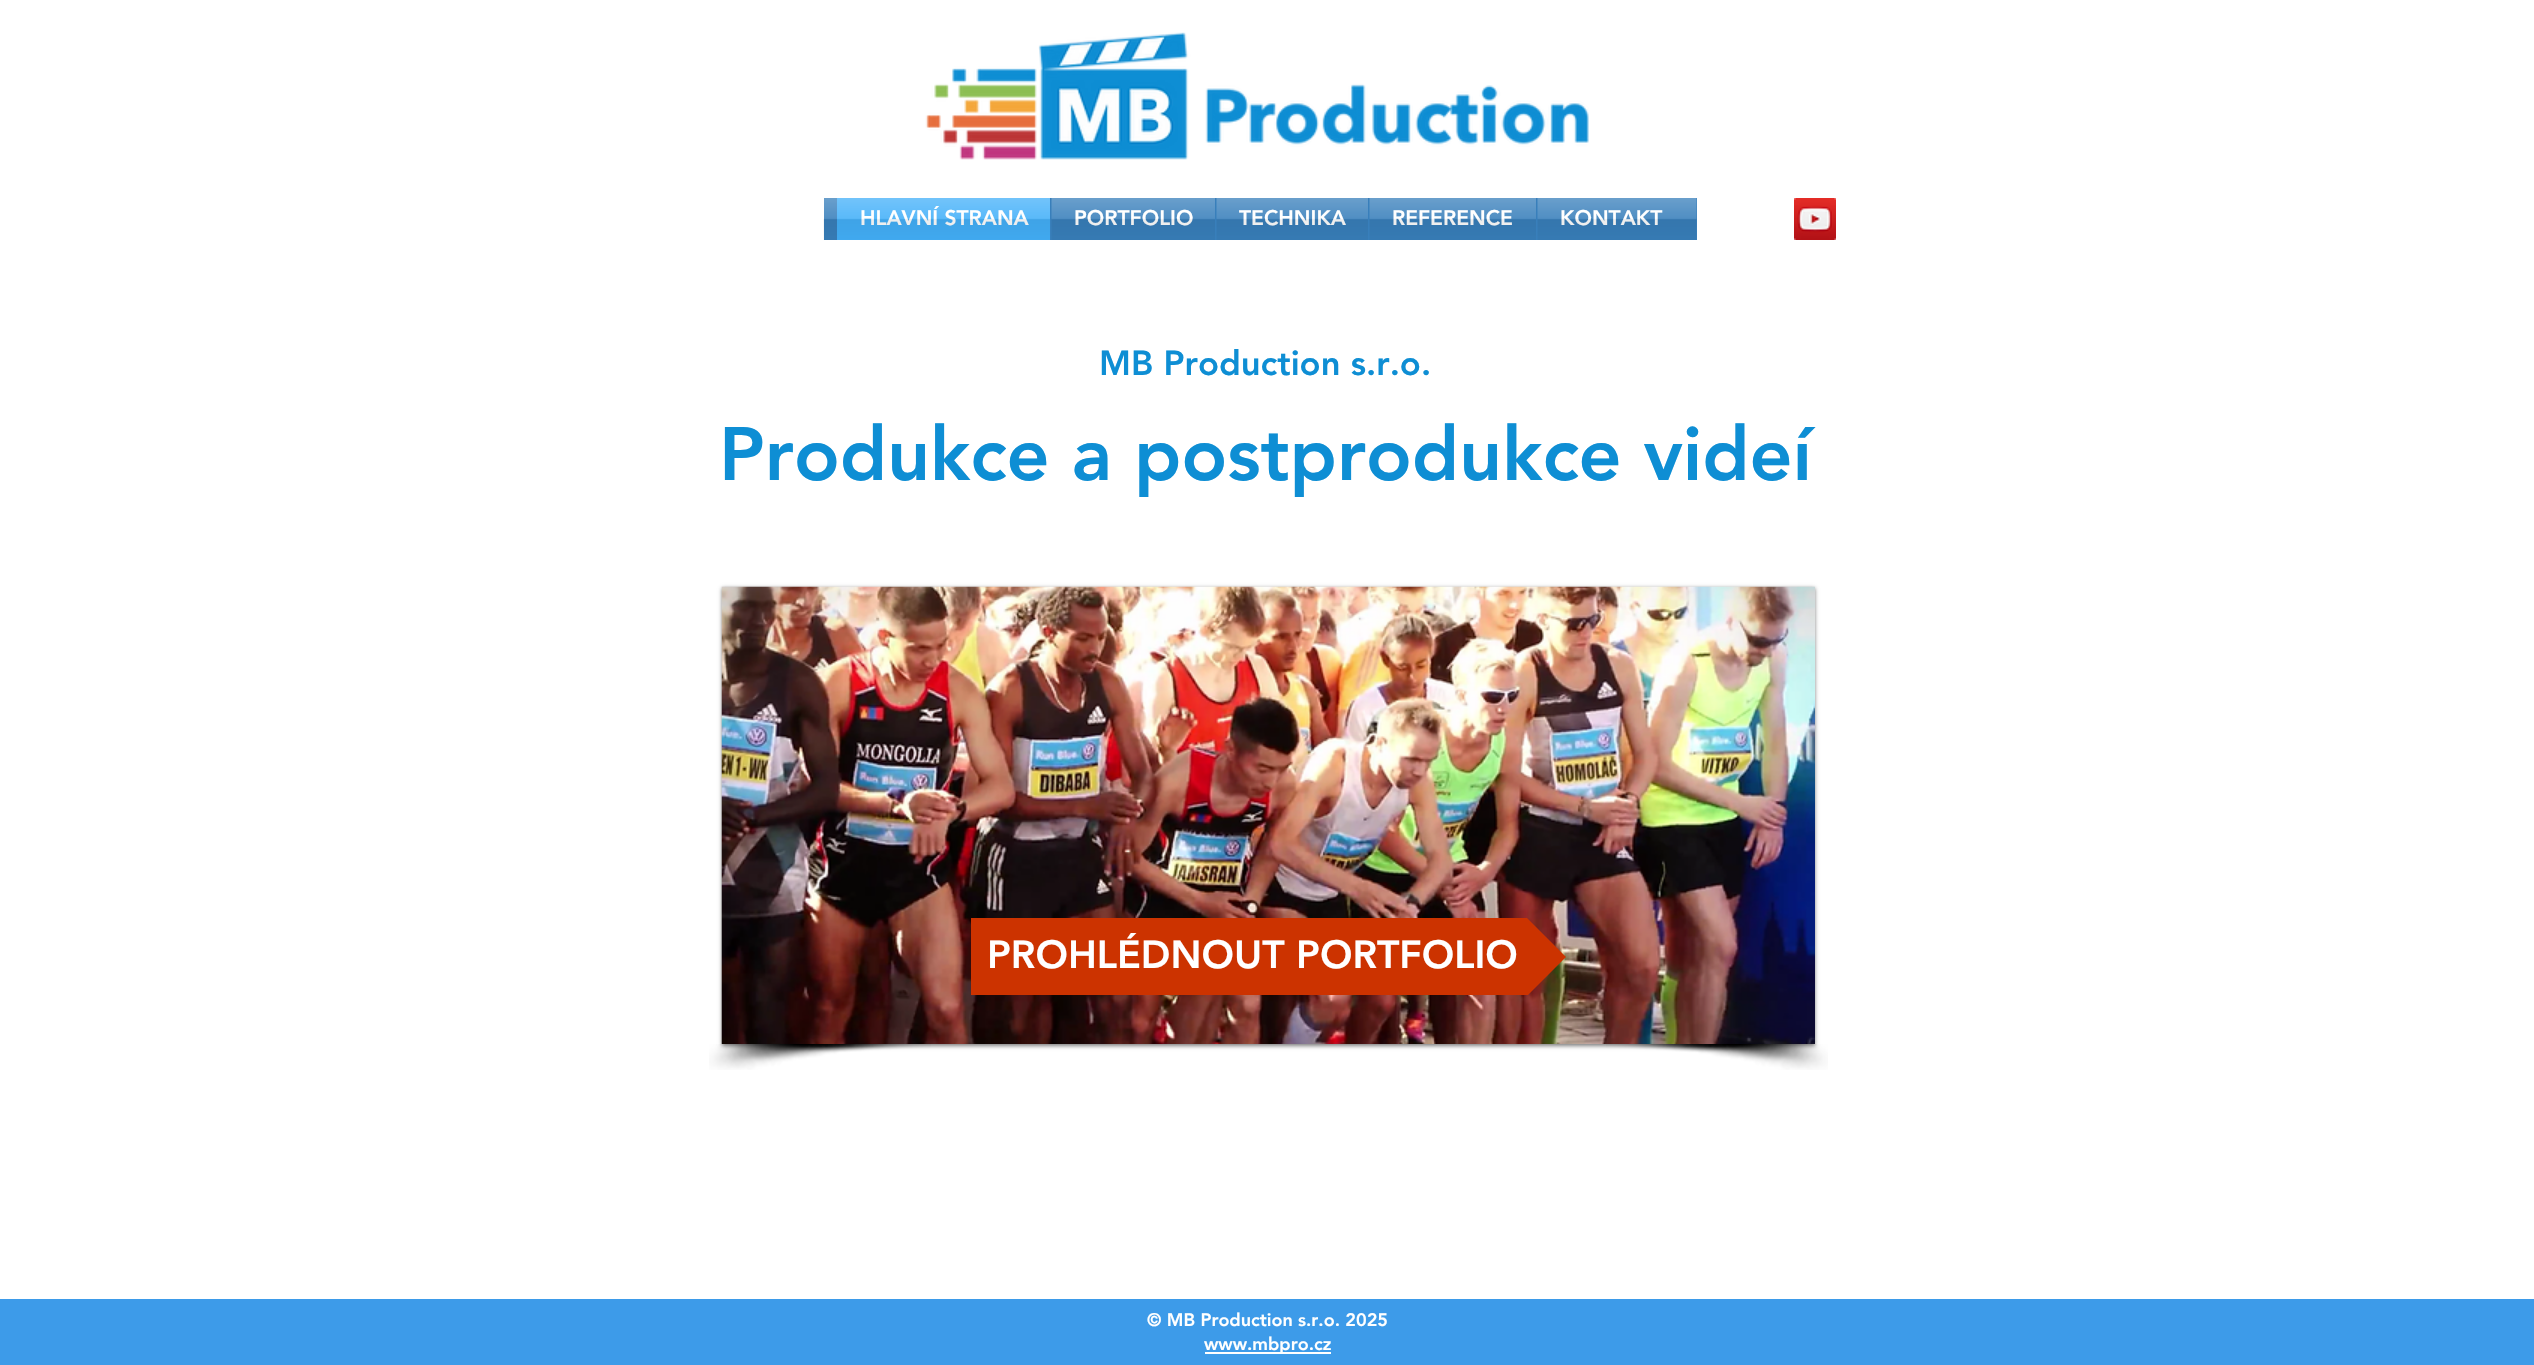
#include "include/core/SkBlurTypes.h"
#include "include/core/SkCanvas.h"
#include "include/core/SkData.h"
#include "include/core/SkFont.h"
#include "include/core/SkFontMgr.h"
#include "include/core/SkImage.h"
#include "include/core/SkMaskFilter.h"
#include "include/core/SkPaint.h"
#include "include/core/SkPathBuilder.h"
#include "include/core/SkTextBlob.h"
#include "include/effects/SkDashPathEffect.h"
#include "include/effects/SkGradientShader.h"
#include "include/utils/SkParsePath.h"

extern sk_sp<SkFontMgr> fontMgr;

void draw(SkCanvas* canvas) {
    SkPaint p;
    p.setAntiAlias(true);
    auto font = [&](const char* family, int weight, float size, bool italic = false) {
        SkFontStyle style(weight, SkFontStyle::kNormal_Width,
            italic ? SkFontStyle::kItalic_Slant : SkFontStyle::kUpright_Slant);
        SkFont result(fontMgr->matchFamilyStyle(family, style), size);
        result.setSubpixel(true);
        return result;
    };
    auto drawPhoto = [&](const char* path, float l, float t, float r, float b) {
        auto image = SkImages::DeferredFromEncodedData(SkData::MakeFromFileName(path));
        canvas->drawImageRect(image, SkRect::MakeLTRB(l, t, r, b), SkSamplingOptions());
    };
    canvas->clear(0xFFFFFFFF);
    drawPhoto("media/1.png", 925, 32, 1589, 160);
    p.setColor(0xFF387FBB);
    canvas->drawRect(SkRect::MakeLTRB(824, 198, 1697, 240), p);
    drawPhoto("media/2.png", 823, 198, 1697, 240);
    p.setColor(0xFF43B0F9);
    canvas->drawRect(SkRect::MakeLTRB(837, 198, 1050, 240), p);
    auto font1 = font("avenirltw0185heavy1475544", 900, 21);
    p.setColor(0xFFFFFFFF);
    canvas->drawString("HLAVNÍ STRANA", 860, 225, font1, p);
    drawPhoto("media/3.png", 837, 198, 1050, 240);
    p.setColor(0xFF387FBB);
    canvas->drawRect(SkRect::MakeLTRB(1050, 198, 1683, 240), p);
    p.setColor(0xFFFFFFFF);
    canvas->drawString("PORTFOLIO", 1074, 225, font1, p);
    drawPhoto("media/4.png", 1051, 198, 1215, 240);
    canvas->drawString("TECHNIKA", 1239, 225, font1, p);
    drawPhoto("media/5.png", 1216, 198, 1368, 240);
    canvas->drawString("REFERENCE", 1392, 225, font1, p);
    drawPhoto("media/6.png", 1369, 198, 1536, 240);
    canvas->drawString("KONTAKT", 1560, 225, font1, p);
    drawPhoto("media/7.png", 1537, 198, 1683, 240);
    drawPhoto("media/8.png", 1794, 198, 1836, 240);
    auto font2 = font("avenirltw0185heavy1475544", 900, 34.5f);
    p.setColor(0xFF0E8ED4);
    canvas->drawString("MB Production s.r.o.", 1099, 375, font2, p);
    auto font3 = font("avenirltw0185heavy1475544", 900, 75);
    canvas->drawString("Produkce a postprodukce videí", 719, 480, font3, p);
    p.setColor(0x80000000);
    p.setMaskFilter(SkMaskFilter::MakeBlur(kNormal_SkBlurStyle, 2));
    canvas->drawRect(SkRect::MakeLTRB(722, 588, 1815, 1046), p);
    p.setMaskFilter(nullptr);
    drawPhoto("media/9.png", 721, 586, 1815, 1044);
    drawPhoto("media/10.png", 709, 1044, 931, 1070);
    drawPhoto("media/11.png", 1606, 1044, 1828, 1070);
    p.setColor(0xFFCC3300);
    canvas->drawRect(SkRect::MakeLTRB(971, 918, 1491, 995), p);
    canvas->save();
    canvas->clipRect(SkRect::MakeLTRB(971, 918, 1566, 995));
    canvas->drawPath(SkPathBuilder().moveTo(1566, 957).lineTo(1491, 957).lineTo(1491, 882).close().detach(), p);
    canvas->drawPath(SkPathBuilder().moveTo(1491, 957).lineTo(1566, 957).lineTo(1491, 1032).close().detach(), p);
    canvas->restore();
    auto font4 = font("avenirltw0185heavy1475544", 900, 39);
    p.setColor(0xFFFFFFFF);
    canvas->drawString("PROHLÉDNOUT PORTFOLIO", 987, 968, font4, p);
    p.setColor(0xFF3D9BE9);
    canvas->drawRect(SkRect::MakeLTRB(0, 1299, 2534, 1365), p);
    auto font5 = font("avenirltw0185heavy1475544", 900, 18);
    p.setColor(0xFFFFFFFF);
    canvas->drawString("© MB Production s.r.o. 2025", 1147, 1326, font5, p);
    canvas->drawRect(SkRect::MakeLTRB(1205, 1352, 1331, 1354), p);
    canvas->drawString("www.mbpro.cz", 1204, 1350, font5, p);
}
